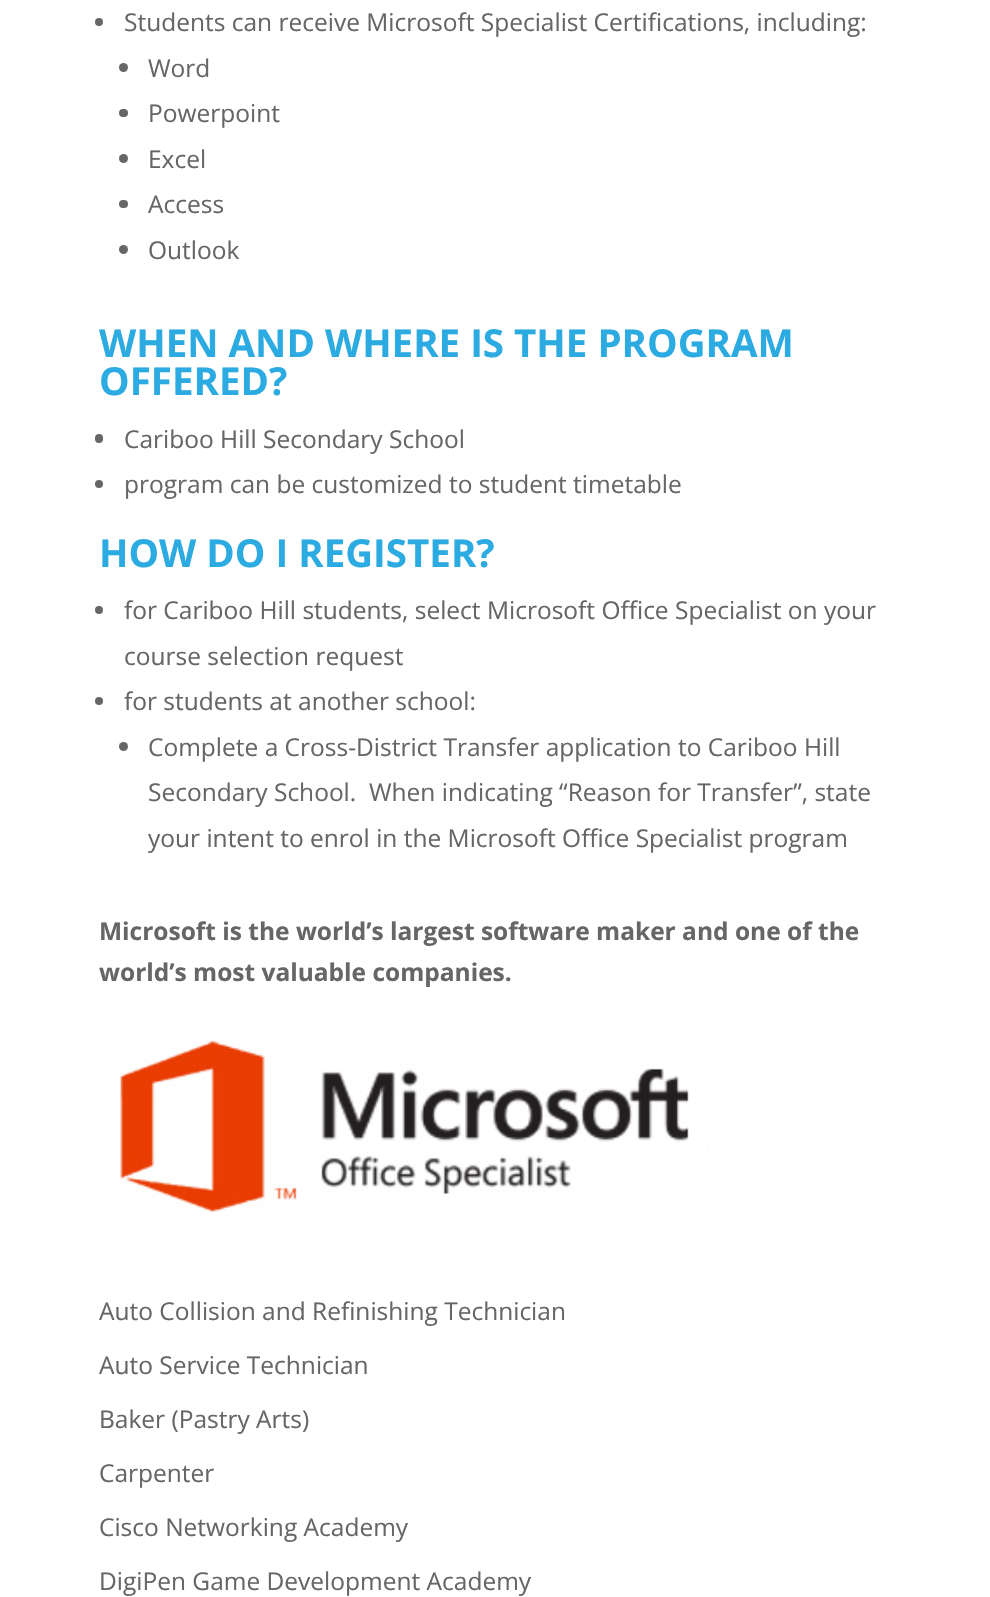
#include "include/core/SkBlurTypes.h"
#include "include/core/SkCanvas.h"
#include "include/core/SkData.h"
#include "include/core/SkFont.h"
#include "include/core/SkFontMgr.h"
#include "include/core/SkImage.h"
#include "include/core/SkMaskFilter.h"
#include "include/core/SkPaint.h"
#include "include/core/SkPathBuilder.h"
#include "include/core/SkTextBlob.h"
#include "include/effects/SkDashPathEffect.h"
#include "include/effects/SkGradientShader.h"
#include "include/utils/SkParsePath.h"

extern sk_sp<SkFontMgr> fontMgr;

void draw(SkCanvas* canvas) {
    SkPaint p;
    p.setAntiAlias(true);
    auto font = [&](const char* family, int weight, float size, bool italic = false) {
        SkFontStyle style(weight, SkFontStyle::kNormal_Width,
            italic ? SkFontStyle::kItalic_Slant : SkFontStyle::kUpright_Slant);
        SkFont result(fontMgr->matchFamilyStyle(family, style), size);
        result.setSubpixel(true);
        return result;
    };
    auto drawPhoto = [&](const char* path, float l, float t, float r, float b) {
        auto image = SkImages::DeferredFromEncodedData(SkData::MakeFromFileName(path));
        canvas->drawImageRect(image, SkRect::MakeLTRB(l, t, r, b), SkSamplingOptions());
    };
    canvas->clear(0xFFFFFFFF);
    p.setColor(0xFF666666);
    canvas->drawCircle(99, 22, 4, p);
    auto font1 = font("Open Sans", 400, 24.5f);
    canvas->drawString("Students can receive Microsoft Specialist Certifications, including:", 124, 31, font1, p);
    canvas->drawCircle(123.5f, 67.5f, 4.5f, p);
    canvas->drawString("Word", 148, 77, font1, p);
    canvas->drawRoundRect(SkRect::MakeLTRB(119, 109, 128, 117), 4, 4, p);
    canvas->drawString("Powerpoint", 148, 122, font1, p);
    canvas->drawCircle(123.5f, 158.5f, 4.5f, p);
    canvas->drawString("Excel", 148, 168, font1, p);
    canvas->drawRoundRect(SkRect::MakeLTRB(119, 200, 128, 208), 4, 4, p);
    canvas->drawString("Access", 148, 213, font1, p);
    canvas->drawCircle(123.5f, 249.5f, 4.5f, p);
    canvas->drawString("Outlook", 148, 259, font1, p);
    auto font2 = font("Open Sans", 700, 38.5f);
    p.setColor(0xFF2CAAE2);
    canvas->drawString("WHEN AND WHERE IS THE PROGRAM", 99, 357, font2, p);
    canvas->drawString("OFFERED?", 99, 395, font2, p);
    p.setColor(0xFF666666);
    canvas->drawRoundRect(SkRect::MakeLTRB(95, 434, 103, 443), 4, 4, p);
    canvas->drawString("Cariboo Hill Secondary School", 124, 448, font1, p);
    canvas->drawCircle(99, 484, 4, p);
    canvas->drawString("program can be customized to student timetable", 124, 493, font1, p);
    p.setColor(0xFF2CAAE2);
    canvas->drawString("HOW DO I REGISTER?", 99, 567, font2, p);
    p.setColor(0xFF666666);
    canvas->drawCircle(99, 610, 4, p);
    canvas->drawString("for Cariboo Hill students, select Microsoft Office Specialist on your", 124, 619, font1, p);
    canvas->drawString("course selection request", 124, 665, font1, p);
    canvas->drawCircle(99, 701, 4, p);
    canvas->drawString("for students at another school:", 124, 710, font1, p);
    canvas->drawCircle(123.5f, 746.5f, 4.5f, p);
    {
        const struct { const char* s; float x, y; } items[] = {
            {"Complete a Cross-District Transfer application to Cariboo Hill", 148, 756},
            {"Secondary School.  When indicating “Reason for Transfer”, state", 148, 801},
            {"your intent to enrol in the Microsoft Office Specialist program", 148, 847},
        };
        for (auto [s, x, y] : items) {
            canvas->drawString(s, x, y, font1, p);
        }
    }
    auto font3 = font("Open Sans", 700, 24.5f);
    canvas->drawString("Microsoft is the world’s largest software maker and one of the", 99, 940, font3, p);
    canvas->drawString("world’s most valuable companies.", 99, 981, font3, p);
    drawPhoto("media/1.png", 120, 1040, 709, 1212);
    {
        const struct { const char* s; float x, y; } items[] = {
            {"Auto Collision and Refinishing Technician", 99, 1320},
            {"Auto Service Technician", 99, 1374},
            {"Baker (Pastry Arts)", 99, 1428},
            {"Carpenter", 99, 1482},
            {"Cisco Networking Academy", 99, 1536},
            {"DigiPen Game Development Academy", 99, 1590},
        };
        for (auto [s, x, y] : items) {
            canvas->drawString(s, x, y, font1, p);
        }
    }
}
